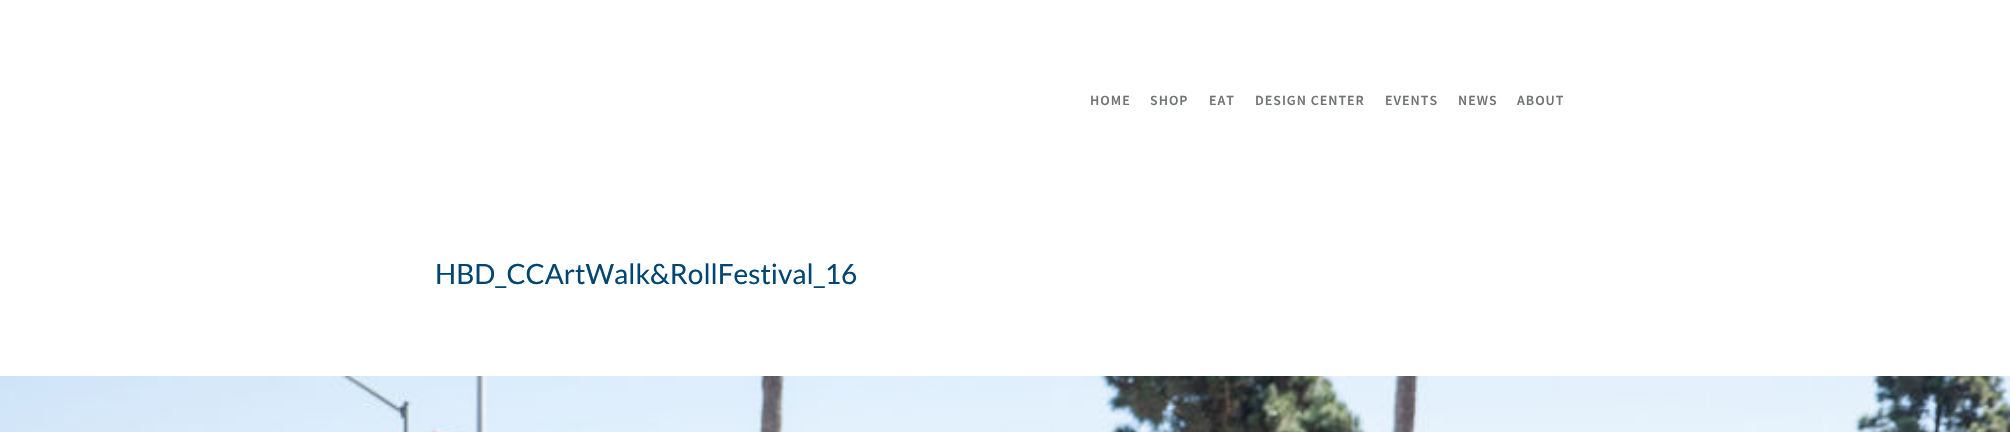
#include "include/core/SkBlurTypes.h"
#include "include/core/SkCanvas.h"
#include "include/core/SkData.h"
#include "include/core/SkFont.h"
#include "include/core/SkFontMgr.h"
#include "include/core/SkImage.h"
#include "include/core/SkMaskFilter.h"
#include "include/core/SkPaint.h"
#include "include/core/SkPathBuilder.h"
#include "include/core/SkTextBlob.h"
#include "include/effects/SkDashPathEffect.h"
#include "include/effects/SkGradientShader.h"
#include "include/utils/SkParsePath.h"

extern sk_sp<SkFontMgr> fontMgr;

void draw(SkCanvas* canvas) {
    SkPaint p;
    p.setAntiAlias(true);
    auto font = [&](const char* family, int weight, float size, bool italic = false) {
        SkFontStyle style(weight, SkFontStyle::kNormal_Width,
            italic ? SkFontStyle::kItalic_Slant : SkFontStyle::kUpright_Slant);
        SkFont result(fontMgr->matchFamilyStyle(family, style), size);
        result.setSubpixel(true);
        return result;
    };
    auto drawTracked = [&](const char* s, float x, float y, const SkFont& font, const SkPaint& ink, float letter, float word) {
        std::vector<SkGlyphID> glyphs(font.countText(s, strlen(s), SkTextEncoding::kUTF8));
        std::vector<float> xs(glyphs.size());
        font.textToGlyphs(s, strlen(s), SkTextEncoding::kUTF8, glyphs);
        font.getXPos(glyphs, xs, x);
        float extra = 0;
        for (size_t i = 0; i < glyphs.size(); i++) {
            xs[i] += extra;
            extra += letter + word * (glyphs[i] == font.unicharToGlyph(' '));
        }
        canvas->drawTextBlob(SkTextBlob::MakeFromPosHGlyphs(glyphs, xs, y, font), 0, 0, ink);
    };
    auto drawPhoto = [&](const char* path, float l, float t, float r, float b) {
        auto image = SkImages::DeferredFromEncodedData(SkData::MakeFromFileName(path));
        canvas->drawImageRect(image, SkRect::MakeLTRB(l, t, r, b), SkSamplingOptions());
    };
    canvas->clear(0xFFFFFFFF);
    auto font1 = font("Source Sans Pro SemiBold", 600, 14);
    p.setColor(0xFF717375);
    {
        const struct { const char* s; float x, y; } items[] = {
            {"HOME", 1090, 105},
            {"SHOP", 1150, 105},
            {"EAT", 1209, 105},
            {"DESIGN CENTER", 1255, 105},
            {"EVENTS", 1385, 105},
            {"NEWS", 1458, 105},
            {"ABOUT", 1517, 105},
        };
        for (auto [s, x, y] : items) {
            drawTracked(s, x, y, font1, p, 1, 0);
        }
    }
    auto font2 = font("Lato", 400, 28);
    p.setColor(0xFF004672);
    canvas->drawString("HBD_CCArtWalk&RollFestival_16", 435, 284, font2, p);
    drawPhoto("media/1.png", 0, 376, 2010, 432);
}
